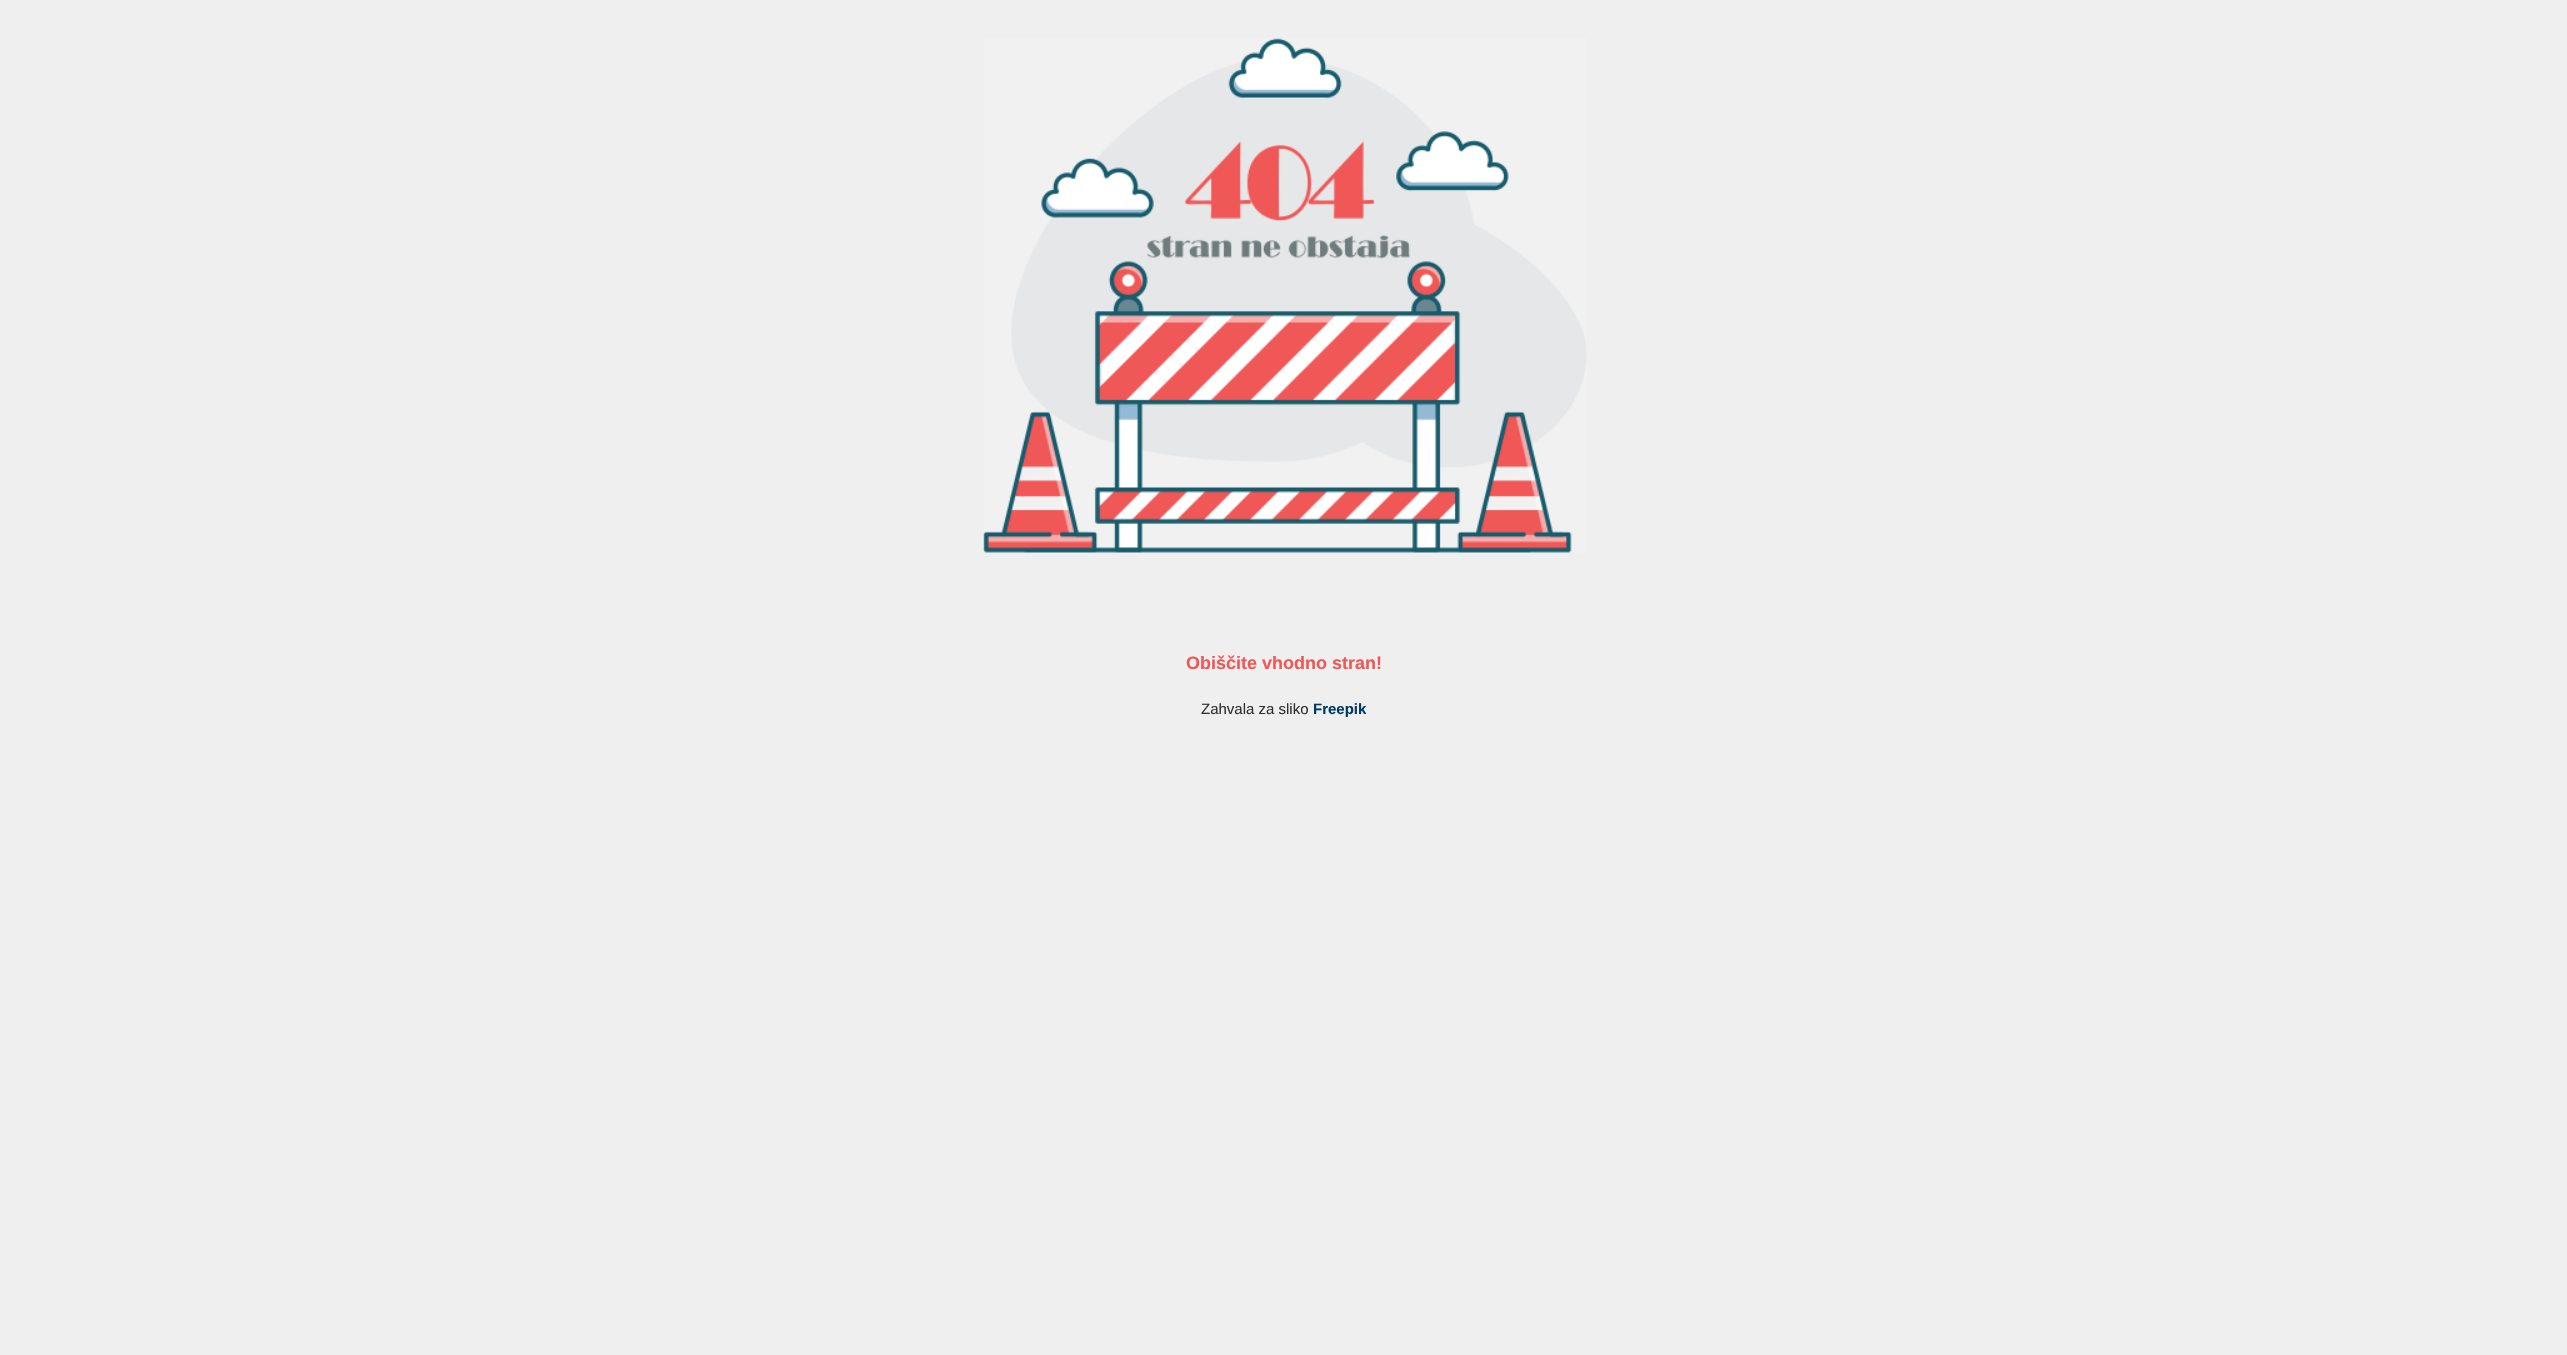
#include "include/core/SkBlurTypes.h"
#include "include/core/SkCanvas.h"
#include "include/core/SkData.h"
#include "include/core/SkFont.h"
#include "include/core/SkFontMgr.h"
#include "include/core/SkImage.h"
#include "include/core/SkMaskFilter.h"
#include "include/core/SkPaint.h"
#include "include/core/SkPathBuilder.h"
#include "include/core/SkTextBlob.h"
#include "include/effects/SkDashPathEffect.h"
#include "include/effects/SkGradientShader.h"
#include "include/utils/SkParsePath.h"

extern sk_sp<SkFontMgr> fontMgr;

void draw(SkCanvas* canvas) {
    SkPaint p;
    p.setAntiAlias(true);
    auto font = [&](const char* family, int weight, float size, bool italic = false) {
        SkFontStyle style(weight, SkFontStyle::kNormal_Width,
            italic ? SkFontStyle::kItalic_Slant : SkFontStyle::kUpright_Slant);
        SkFont result(fontMgr->matchFamilyStyle(family, style), size);
        result.setSubpixel(true);
        return result;
    };
    auto drawPhoto = [&](const char* path, float l, float t, float r, float b) {
        auto image = SkImages::DeferredFromEncodedData(SkData::MakeFromFileName(path));
        canvas->drawImageRect(image, SkRect::MakeLTRB(l, t, r, b), SkSamplingOptions());
    };
    canvas->clear(0xFFEFEFEF);
    drawPhoto("media/1.png", 983, 38, 1587, 553);
    auto font1 = font("Liberation Sans", 700, 18);
    p.setColor(0xFFF05757);
    canvas->drawString("Obiščite vhodno stran!", 1186, 669, font1, p);
    auto font2 = font("Liberation Sans", 400, 15);
    p.setColor(0xFF2E2F30);
    canvas->drawString("Zahvala za sliko", 1201, 714, font2, p);
    auto font3 = font("Liberation Sans", 700, 15);
    p.setColor(0xFF003A68);
    canvas->drawString("Freepik", 1313, 714, font3, p);
}
